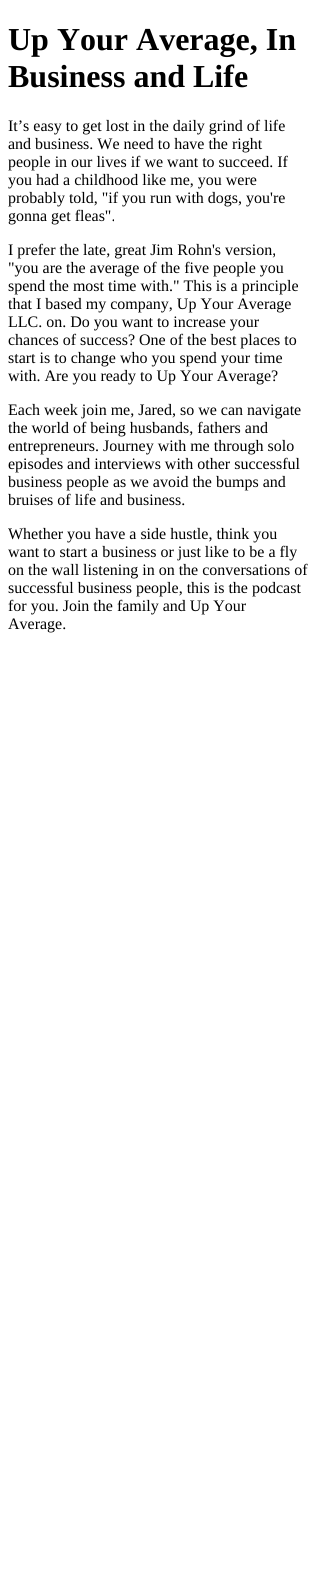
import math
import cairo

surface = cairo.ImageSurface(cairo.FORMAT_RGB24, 316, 1577)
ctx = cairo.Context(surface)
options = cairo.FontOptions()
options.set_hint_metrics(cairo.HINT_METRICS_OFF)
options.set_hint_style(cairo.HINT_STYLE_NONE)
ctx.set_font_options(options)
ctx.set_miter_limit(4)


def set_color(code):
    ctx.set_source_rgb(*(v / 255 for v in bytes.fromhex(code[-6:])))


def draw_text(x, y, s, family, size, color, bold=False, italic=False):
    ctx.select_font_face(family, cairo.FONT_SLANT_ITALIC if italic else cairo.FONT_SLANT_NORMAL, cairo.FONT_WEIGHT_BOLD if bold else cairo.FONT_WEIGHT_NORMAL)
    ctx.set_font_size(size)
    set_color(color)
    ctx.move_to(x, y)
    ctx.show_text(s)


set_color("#ffffff")
ctx.paint()
draw_text(8, 50, "Up Your Average, In", "Liberation Serif", 32, "#000000", bold=True)
draw_text(8, 87, "Business and Life", "Liberation Serif", 32, "#000000", bold=True)
draw_text(8, 131, "It’s easy to get lost in the daily grind of life", "Liberation Serif", 16, "#000000")
draw_text(8, 149, "and business. We need to have the right", "Liberation Serif", 16, "#000000")
draw_text(8, 167, "people in our lives if we want to succeed. If", "Liberation Serif", 16, "#000000")
draw_text(8, 185, "you had a childhood like me, you were", "Liberation Serif", 16, "#000000")
draw_text(8, 203, "probably told, \"if you run with dogs, you're", "Liberation Serif", 16, "#000000")
draw_text(8, 221, "gonna get fleas\".", "Liberation Serif", 16, "#000000")
draw_text(8, 255, "I prefer the late, great Jim Rohn's version,", "Liberation Serif", 16, "#000000")
draw_text(8, 273, "\"you are the average of the five people you", "Liberation Serif", 16, "#000000")
draw_text(8, 291, "spend the most time with.\" This is a principle", "Liberation Serif", 16, "#000000")
draw_text(8, 309, "that I based my company, Up Your Average", "Liberation Serif", 16, "#000000")
draw_text(8, 327, "LLC. on. Do you want to increase your", "Liberation Serif", 16, "#000000")
draw_text(8, 345, "chances of success? One of the best places to", "Liberation Serif", 16, "#000000")
draw_text(8, 363, "start is to change who you spend your time", "Liberation Serif", 16, "#000000")
draw_text(8, 381, "with. Are you ready to Up Your Average?", "Liberation Serif", 16, "#000000")
draw_text(8, 415, "Each week join me, Jared, so we can navigate", "Liberation Serif", 16, "#000000")
draw_text(8, 433, "the world of being husbands, fathers and", "Liberation Serif", 16, "#000000")
draw_text(8, 451, "entrepreneurs. Journey with me through solo", "Liberation Serif", 16, "#000000")
draw_text(8, 469, "episodes and interviews with other successful", "Liberation Serif", 16, "#000000")
draw_text(8, 487, "business people as we avoid the bumps and", "Liberation Serif", 16, "#000000")
draw_text(8, 505, "bruises of life and business.", "Liberation Serif", 16, "#000000")
draw_text(8, 539, "Whether you have a side hustle, think you", "Liberation Serif", 16, "#000000")
draw_text(8, 557, "want to start a business or just like to be a fly", "Liberation Serif", 16, "#000000")
draw_text(8, 575, "on the wall listening in on the conversations of", "Liberation Serif", 16, "#000000")
draw_text(8, 593, "successful business people, this is the podcast", "Liberation Serif", 16, "#000000")
draw_text(8, 611, "for you. Join the family and Up Your", "Liberation Serif", 16, "#000000")
draw_text(8, 629, "Average.", "Liberation Serif", 16, "#000000")
surface.write_to_png("output.png")
